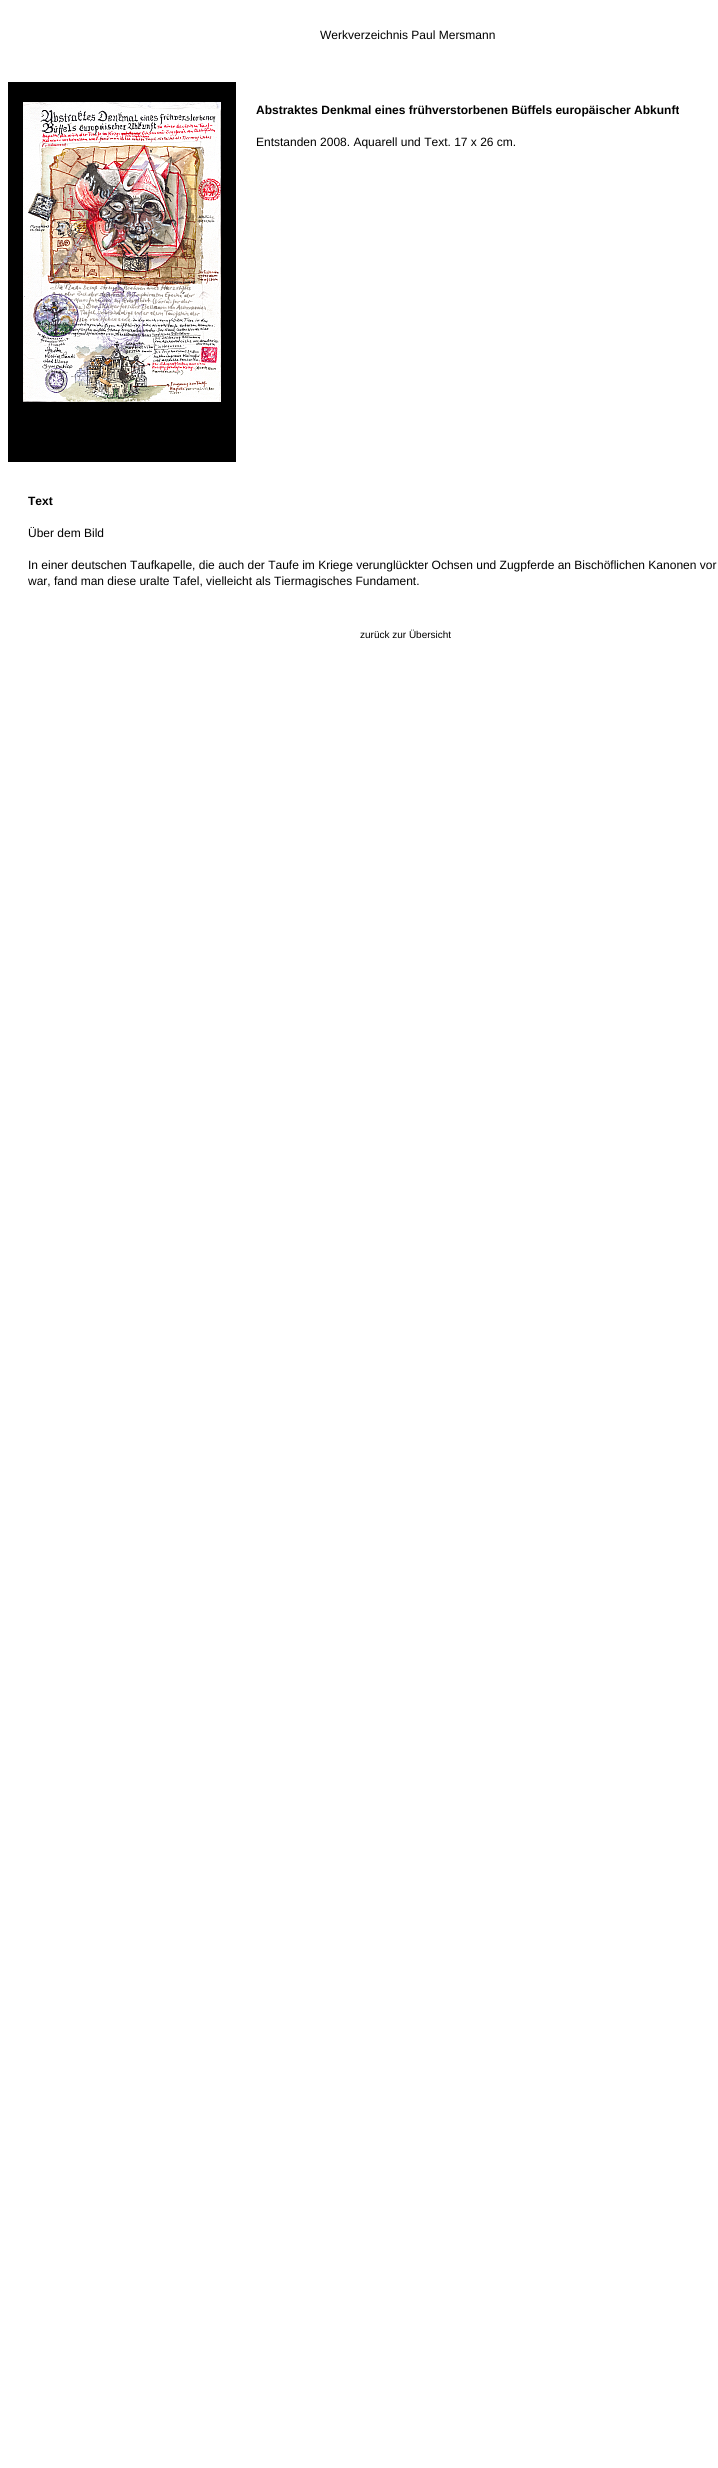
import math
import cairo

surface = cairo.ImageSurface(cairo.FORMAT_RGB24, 718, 2468)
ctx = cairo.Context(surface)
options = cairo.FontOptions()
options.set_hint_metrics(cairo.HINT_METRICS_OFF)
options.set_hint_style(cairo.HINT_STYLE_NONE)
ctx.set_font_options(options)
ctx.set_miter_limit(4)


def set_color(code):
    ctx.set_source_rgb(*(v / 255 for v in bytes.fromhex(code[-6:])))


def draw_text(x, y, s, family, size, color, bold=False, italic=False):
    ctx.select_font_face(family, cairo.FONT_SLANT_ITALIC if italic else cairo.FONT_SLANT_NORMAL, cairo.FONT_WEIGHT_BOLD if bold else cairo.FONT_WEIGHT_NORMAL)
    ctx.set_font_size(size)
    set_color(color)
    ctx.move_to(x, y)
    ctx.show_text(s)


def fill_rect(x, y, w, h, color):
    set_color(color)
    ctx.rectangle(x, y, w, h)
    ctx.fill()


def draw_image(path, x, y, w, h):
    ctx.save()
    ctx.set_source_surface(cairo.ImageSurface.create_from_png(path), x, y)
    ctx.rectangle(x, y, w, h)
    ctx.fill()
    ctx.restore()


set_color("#ffffff")
ctx.paint()
draw_text(320, 39, "Werkverzeichnis Paul Mersmann", "Liberation Sans", 12, "#000000")
fill_rect(8, 82, 228, 380, "#000000")
draw_image("assets/img1.png", 23, 102, 198, 300)
draw_text(256, 114, "Abstraktes Denkmal eines frühverstorbenen Büffels europäischer Abkunft", "Liberation Sans", 12, "#000000", bold=True)
draw_text(256, 146, "Entstanden 2008. Aquarell und Text. 17 x 26 cm.", "Liberation Sans", 12, "#000000")
draw_text(28, 505, "Text", "Liberation Sans", 12, "#000000", bold=True)
draw_text(28, 537, "Über dem Bild", "Liberation Sans", 12, "#000000")
draw_text(28, 569, "In einer deutschen Taufkapelle, die auch der Taufe im Kriege verunglückter Ochsen und Zugpferde an Bischöflichen Kanonen vor", "Liberation Sans", 12, "#000000")
draw_text(28, 585, "war, fand man diese uralte Tafel, vielleicht als Tiermagisches Fundament.", "Liberation Sans", 12, "#000000")
draw_text(360, 638, "zurück zur Übersicht", "Liberation Sans", 10, "#000000")
surface.write_to_png("output.png")
